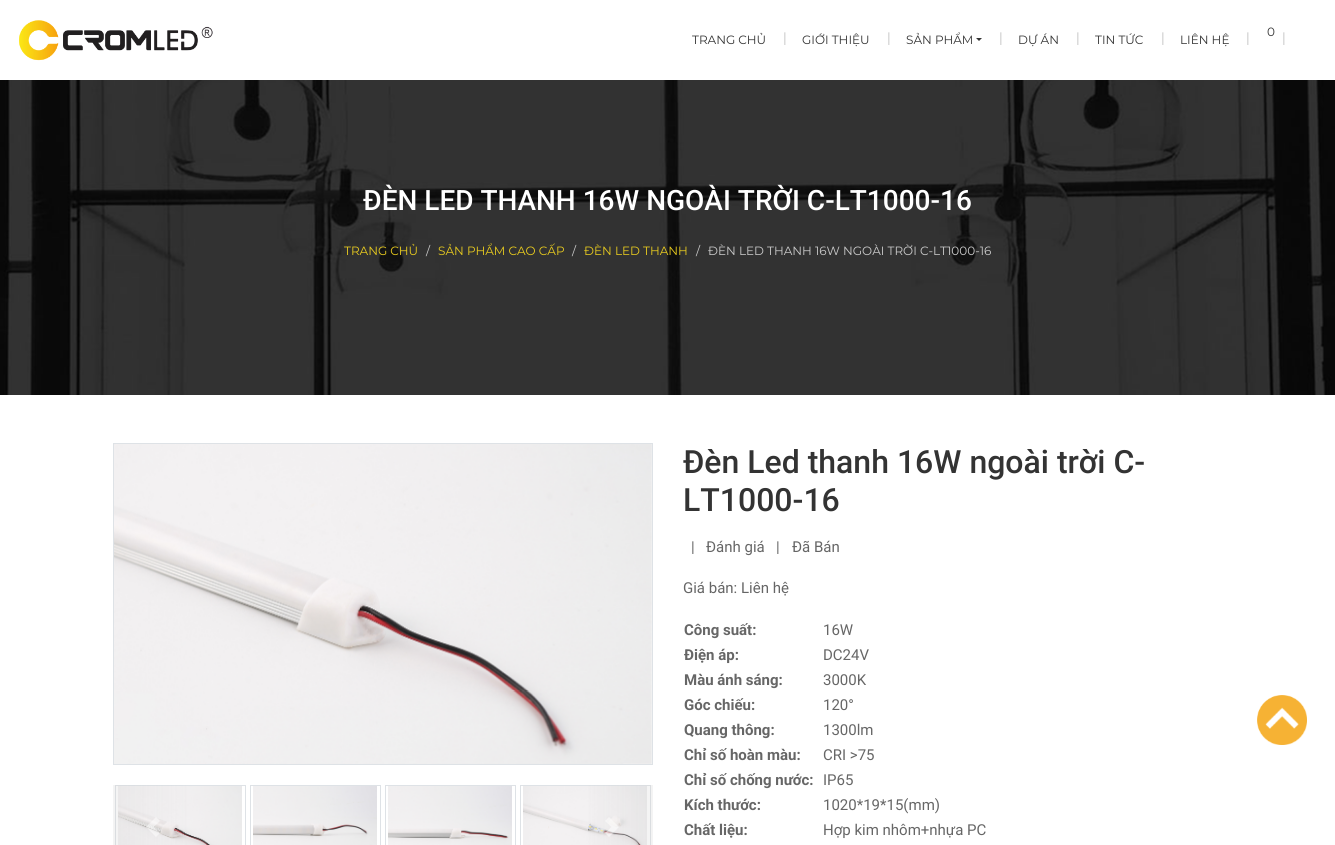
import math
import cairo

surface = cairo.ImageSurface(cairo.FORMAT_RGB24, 1335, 845)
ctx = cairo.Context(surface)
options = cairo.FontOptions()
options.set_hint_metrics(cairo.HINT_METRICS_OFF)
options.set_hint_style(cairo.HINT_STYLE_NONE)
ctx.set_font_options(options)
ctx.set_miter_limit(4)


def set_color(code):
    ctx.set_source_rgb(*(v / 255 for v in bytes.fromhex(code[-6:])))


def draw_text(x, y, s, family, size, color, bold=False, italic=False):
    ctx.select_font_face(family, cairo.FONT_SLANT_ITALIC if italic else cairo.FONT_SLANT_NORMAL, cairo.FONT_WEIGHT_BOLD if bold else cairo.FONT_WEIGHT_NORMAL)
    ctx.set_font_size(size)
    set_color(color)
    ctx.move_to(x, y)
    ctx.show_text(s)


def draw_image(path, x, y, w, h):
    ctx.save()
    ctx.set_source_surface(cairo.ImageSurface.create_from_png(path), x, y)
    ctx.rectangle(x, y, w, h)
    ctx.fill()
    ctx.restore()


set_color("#ffffff")
ctx.paint()
draw_image("assets/img1.png", 19, 20, 194, 41)
draw_text(692, 44, "TRANG CHỦ", "Montserrat", 12, "#333333")
draw_text(783, 43, "|", "Roboto", 15, "#cccccc")
draw_text(802, 44, "GIỚI THIỆU", "Montserrat", 12, "#333333")
draw_text(887, 43, "|", "Roboto", 15, "#cccccc")
draw_text(906, 44, "SẢN PHẨM", "Montserrat", 12, "#333333")
ctx.new_path()
ctx.move_to(976, 38)
ctx.line_to(982, 38)
ctx.line_to(979, 41)
ctx.close_path()
ctx.fill()
draw_text(999, 43, "|", "Roboto", 15, "#cccccc")
draw_text(1018, 44, "DỰ ÁN", "Montserrat", 12, "#333333")
draw_text(1076, 43, "|", "Roboto", 15, "#cccccc")
draw_text(1095, 44, "TIN TỨC", "Montserrat", 12, "#333333")
draw_text(1161, 43, "|", "Roboto", 15, "#cccccc")
draw_text(1180, 44, "LIÊN HỆ", "Montserrat", 12, "#333333")
draw_text(1246, 43, "|", "Roboto", 15, "#cccccc")
draw_text(1267, 36, "0", "Montserrat", 12, "#333333")
draw_text(1282, 43, "|", "Roboto", 15, "#cccccc")
draw_image("assets/img2.png", 0, 80, 1335, 315)
draw_text(363, 210, "ĐÈN LED THANH 16W NGOÀI TRỜI C-LT1000-16", "Roboto Medium", 28, "#ffffff")
draw_text(344, 255, "TRANG CHỦ", "Montserrat", 12, "#ebcd1e")
draw_text(426, 255, "/", "Montserrat", 12, "#cccccc")
draw_text(438, 255, "SẢN PHẨM CAO CẤP", "Montserrat", 12, "#ebcd1e")
draw_text(572, 255, "/", "Montserrat", 12, "#cccccc")
draw_text(584, 255, "ĐÈN LED THANH", "Montserrat", 12, "#ebcd1e")
draw_text(696, 255, "/", "Montserrat", 12, "#cccccc")
draw_text(708, 255, "ĐÈN LED THANH 16W NGOÀI TRỜI C-LT1000-16", "Montserrat", 12, "#cccccc")
ctx.rectangle(113.5, 443.5, 539, 321)
set_color("#dee2e6")
ctx.set_line_width(1)
ctx.stroke()
gradient = cairo.LinearGradient(242, 368, 524, 840)
gradient.add_color_stop_rgba(0, 0.945, 0.945, 0.945, 1)
gradient.add_color_stop_rgba(1, 1, 1, 1, 1)
ctx.set_source(gradient)
ctx.rectangle(114, 444, 538, 320)
ctx.fill()
draw_image("assets/img4.png", 142, 444, 481, 320)
draw_image("assets/img3.png", 114, 444, 538, 320)
ctx.rectangle(115.5, 785.5, 130, 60)
set_color("#dee2e6")
ctx.stroke()
draw_image("assets/img5.png", 118, 786, 124, 59)
gradient = cairo.LinearGradient(113, 828, 194, 828)
gradient.add_color_stop_rgba(0, 0.816, 0.816, 0.816, 0.25)
gradient.add_color_stop_rgba(1, 0.816, 0.816, 0.816, 0)
ctx.set_source(gradient)
ctx.rectangle(113, 785, 74, 60)
ctx.fill()
ctx.set_source_rgba(1, 1, 1, 0.5)
ctx.new_path()
ctx.move_to(156, 817)
ctx.line_to(146, 827)
ctx.line_to(156, 837)
ctx.line_to(160, 833)
ctx.line_to(153.5, 827)
ctx.line_to(160, 821)
ctx.close_path()
ctx.fill()
ctx.rectangle(250.5, 785.5, 130, 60)
set_color("#dee2e6")
ctx.stroke()
draw_image("assets/img6.png", 253, 786, 124, 59)
ctx.rectangle(385.5, 785.5, 130, 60)
ctx.stroke()
draw_image("assets/img7.png", 388, 786, 124, 59)
ctx.rectangle(520.5, 785.5, 130, 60)
ctx.stroke()
draw_image("assets/img8.png", 523, 786, 124, 59)
gradient = cairo.LinearGradient(572, 828, 653, 828)
gradient.add_color_stop_rgba(0, 0.816, 0.816, 0.816, 0)
gradient.add_color_stop_rgba(1, 0.816, 0.816, 0.816, 0.25)
ctx.set_source(gradient)
ctx.rectangle(588, 785, 65, 60)
ctx.fill()
ctx.set_source_rgba(1, 1, 1, 0.5)
ctx.new_path()
ctx.move_to(609, 817)
ctx.line_to(605, 821)
ctx.line_to(611.5, 827)
ctx.line_to(605, 833)
ctx.line_to(609, 837)
ctx.line_to(619, 827)
ctx.close_path()
ctx.fill()
draw_text(683, 473, "Đèn Led thanh 16W ngoài trời C-", "Roboto Medium", 32, "#333333")
draw_text(683, 511, "LT1000-16", "Roboto Medium", 32, "#333333")
draw_text(691, 552, "|", "Roboto", 15, "#666666")
draw_text(706, 552, "Đánh giá", "Roboto", 15, "#666666")
draw_text(776, 552, "|", "Roboto", 15, "#666666")
draw_text(792, 552, "Đã Bán", "Roboto", 15, "#666666")
draw_text(683, 593, "Giá bán: Liên hệ", "Roboto", 15, "#666666")
draw_text(684, 635, "Công suất:", "Roboto", 15, "#666666", bold=True)
draw_text(684, 660, "Điện áp:", "Roboto", 15, "#666666", bold=True)
draw_text(684, 685, "Màu ánh sáng:", "Roboto", 15, "#666666", bold=True)
draw_text(684, 710, "Góc chiếu:", "Roboto", 15, "#666666", bold=True)
draw_text(684, 735, "Quang thông:", "Roboto", 15, "#666666", bold=True)
draw_text(684, 760, "Chỉ số hoàn màu:", "Roboto", 15, "#666666", bold=True)
draw_text(684, 785, "Chỉ số chống nước:", "Roboto", 15, "#666666", bold=True)
draw_text(684, 810, "Kích thước:", "Roboto", 15, "#666666", bold=True)
draw_text(684, 835, "Chất liệu:", "Roboto", 15, "#666666", bold=True)
draw_text(823, 635, "16W", "Roboto", 15, "#666666")
draw_text(823, 660, "DC24V", "Roboto", 15, "#666666")
draw_text(823, 685, "3000K", "Roboto", 15, "#666666")
draw_text(823, 710, "120°", "Roboto", 15, "#666666")
draw_text(823, 735, "1300lm", "Roboto", 15, "#666666")
draw_text(823, 760, "CRI >75", "Roboto", 15, "#666666")
draw_text(823, 785, "IP65", "Roboto", 15, "#666666")
draw_text(823, 810, "1020*19*15(mm)", "Roboto", 15, "#666666")
draw_text(823, 835, "Hợp kim nhôm+nhựa PC", "Roboto", 15, "#666666")
draw_image("assets/img9.png", 1257, 695, 50, 50)
surface.write_to_png("output.png")
